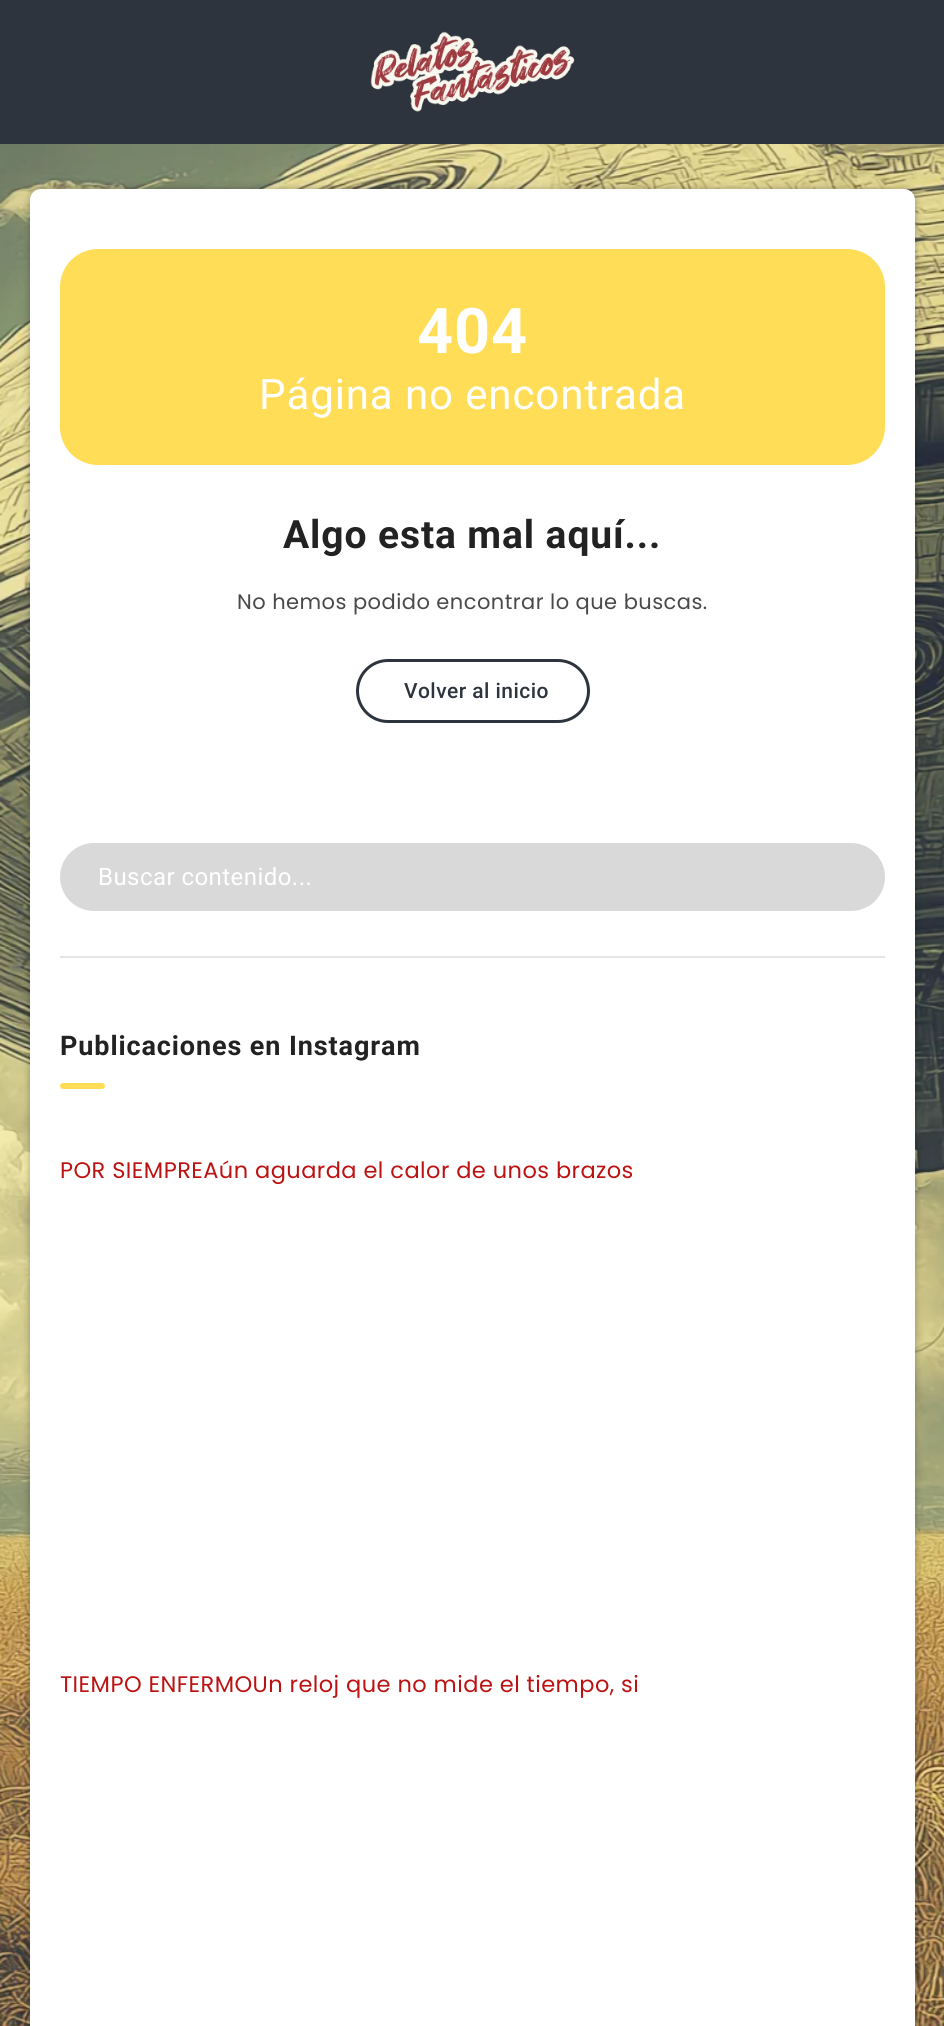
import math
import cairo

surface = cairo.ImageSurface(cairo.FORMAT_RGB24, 944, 2026)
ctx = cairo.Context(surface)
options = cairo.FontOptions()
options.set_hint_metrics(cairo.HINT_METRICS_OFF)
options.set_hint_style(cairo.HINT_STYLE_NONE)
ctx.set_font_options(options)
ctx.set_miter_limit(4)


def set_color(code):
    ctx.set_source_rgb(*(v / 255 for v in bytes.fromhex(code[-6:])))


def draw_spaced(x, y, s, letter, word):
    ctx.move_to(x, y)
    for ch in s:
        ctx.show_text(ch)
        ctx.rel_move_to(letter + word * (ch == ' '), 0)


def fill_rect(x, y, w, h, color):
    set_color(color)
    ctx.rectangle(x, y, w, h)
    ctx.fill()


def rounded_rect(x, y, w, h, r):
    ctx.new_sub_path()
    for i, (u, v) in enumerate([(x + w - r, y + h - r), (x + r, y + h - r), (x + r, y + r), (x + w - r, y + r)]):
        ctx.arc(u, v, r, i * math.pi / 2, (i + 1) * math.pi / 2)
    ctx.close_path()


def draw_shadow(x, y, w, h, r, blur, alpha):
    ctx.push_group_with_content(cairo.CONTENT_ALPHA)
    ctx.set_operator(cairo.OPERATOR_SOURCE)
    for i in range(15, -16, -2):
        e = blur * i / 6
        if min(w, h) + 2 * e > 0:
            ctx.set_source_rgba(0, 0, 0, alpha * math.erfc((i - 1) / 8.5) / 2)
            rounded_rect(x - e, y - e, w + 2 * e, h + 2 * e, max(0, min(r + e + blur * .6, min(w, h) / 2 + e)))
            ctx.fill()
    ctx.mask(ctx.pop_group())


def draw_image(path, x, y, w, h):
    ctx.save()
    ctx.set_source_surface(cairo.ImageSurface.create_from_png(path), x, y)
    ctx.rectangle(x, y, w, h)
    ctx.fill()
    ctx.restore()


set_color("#ffffff")
ctx.paint()
draw_image("assets/img1.png", 0, 144, 944, 1882)
fill_rect(0, 0, 944, 144, "#2e343d")
draw_image("assets/img2.png", 370, 31, 205, 81)
set_color("#000000")
draw_shadow(30, 189, 885, 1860, 11, 4, 0.3)
set_color("#ffffff")
rounded_rect(30, 189, 885, 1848, 11)
ctx.fill()
set_color("#ffdd56")
rounded_rect(60, 249, 825, 216, 38)
ctx.fill()
ctx.select_font_face("Roboto", cairo.FONT_SLANT_NORMAL, cairo.FONT_WEIGHT_BOLD)
ctx.set_font_size(63)
set_color("#ffffff")
draw_spaced(417, 353, "404", 0.9, 0)
ctx.select_font_face("Roboto")
ctx.set_font_size(42)
draw_spaced(259, 409, "Página no encontrada", 0.9, 0)
ctx.select_font_face("Roboto", cairo.FONT_SLANT_NORMAL, cairo.FONT_WEIGHT_BOLD)
ctx.set_font_size(39)
set_color("#222222")
draw_spaced(283, 548, "Algo esta mal aquí...", 0.9, 0)
ctx.select_font_face("Poppins")
ctx.set_font_size(21)
set_color("#494949")
draw_spaced(237, 609, "No hemos podido encontrar lo que buscas.", 0.45, 0)
rounded_rect(357.5, 660.5, 231, 61, 30.5)
set_color("#2e343d")
ctx.set_line_width(3)
ctx.stroke()
ctx.select_font_face("Roboto Medium")
draw_spaced(404, 698, "Volver al inicio", 0.45, 0)
fill_rect(60, 956, 825, 2, "#e5e5e5")
set_color("#d9d9d9")
rounded_rect(60, 843, 825, 68, 34)
ctx.fill()
ctx.select_font_face("Roboto")
ctx.set_font_size(24)
set_color("#ffffff")
draw_spaced(98, 885, "Buscar contenido...", 0.45, 0)
ctx.select_font_face("Roboto", cairo.FONT_SLANT_NORMAL, cairo.FONT_WEIGHT_BOLD)
ctx.set_font_size(27)
set_color("#222222")
draw_spaced(60, 1055, "Publicaciones en Instagram", 0.9, 0)
set_color("#ffdd56")
rounded_rect(60, 1083, 45, 6, 3)
ctx.fill()
ctx.select_font_face("Poppins")
ctx.set_font_size(22.5)
set_color("#bc1212")
draw_spaced(60, 1178, "POR SIEMPREAún aguarda el calor de unos brazos", 0.45, 0)
draw_spaced(60, 1692, "TIEMPO ENFERMOUn reloj que no mide el tiempo, si", 0.45, 0)
surface.write_to_png("output.png")
